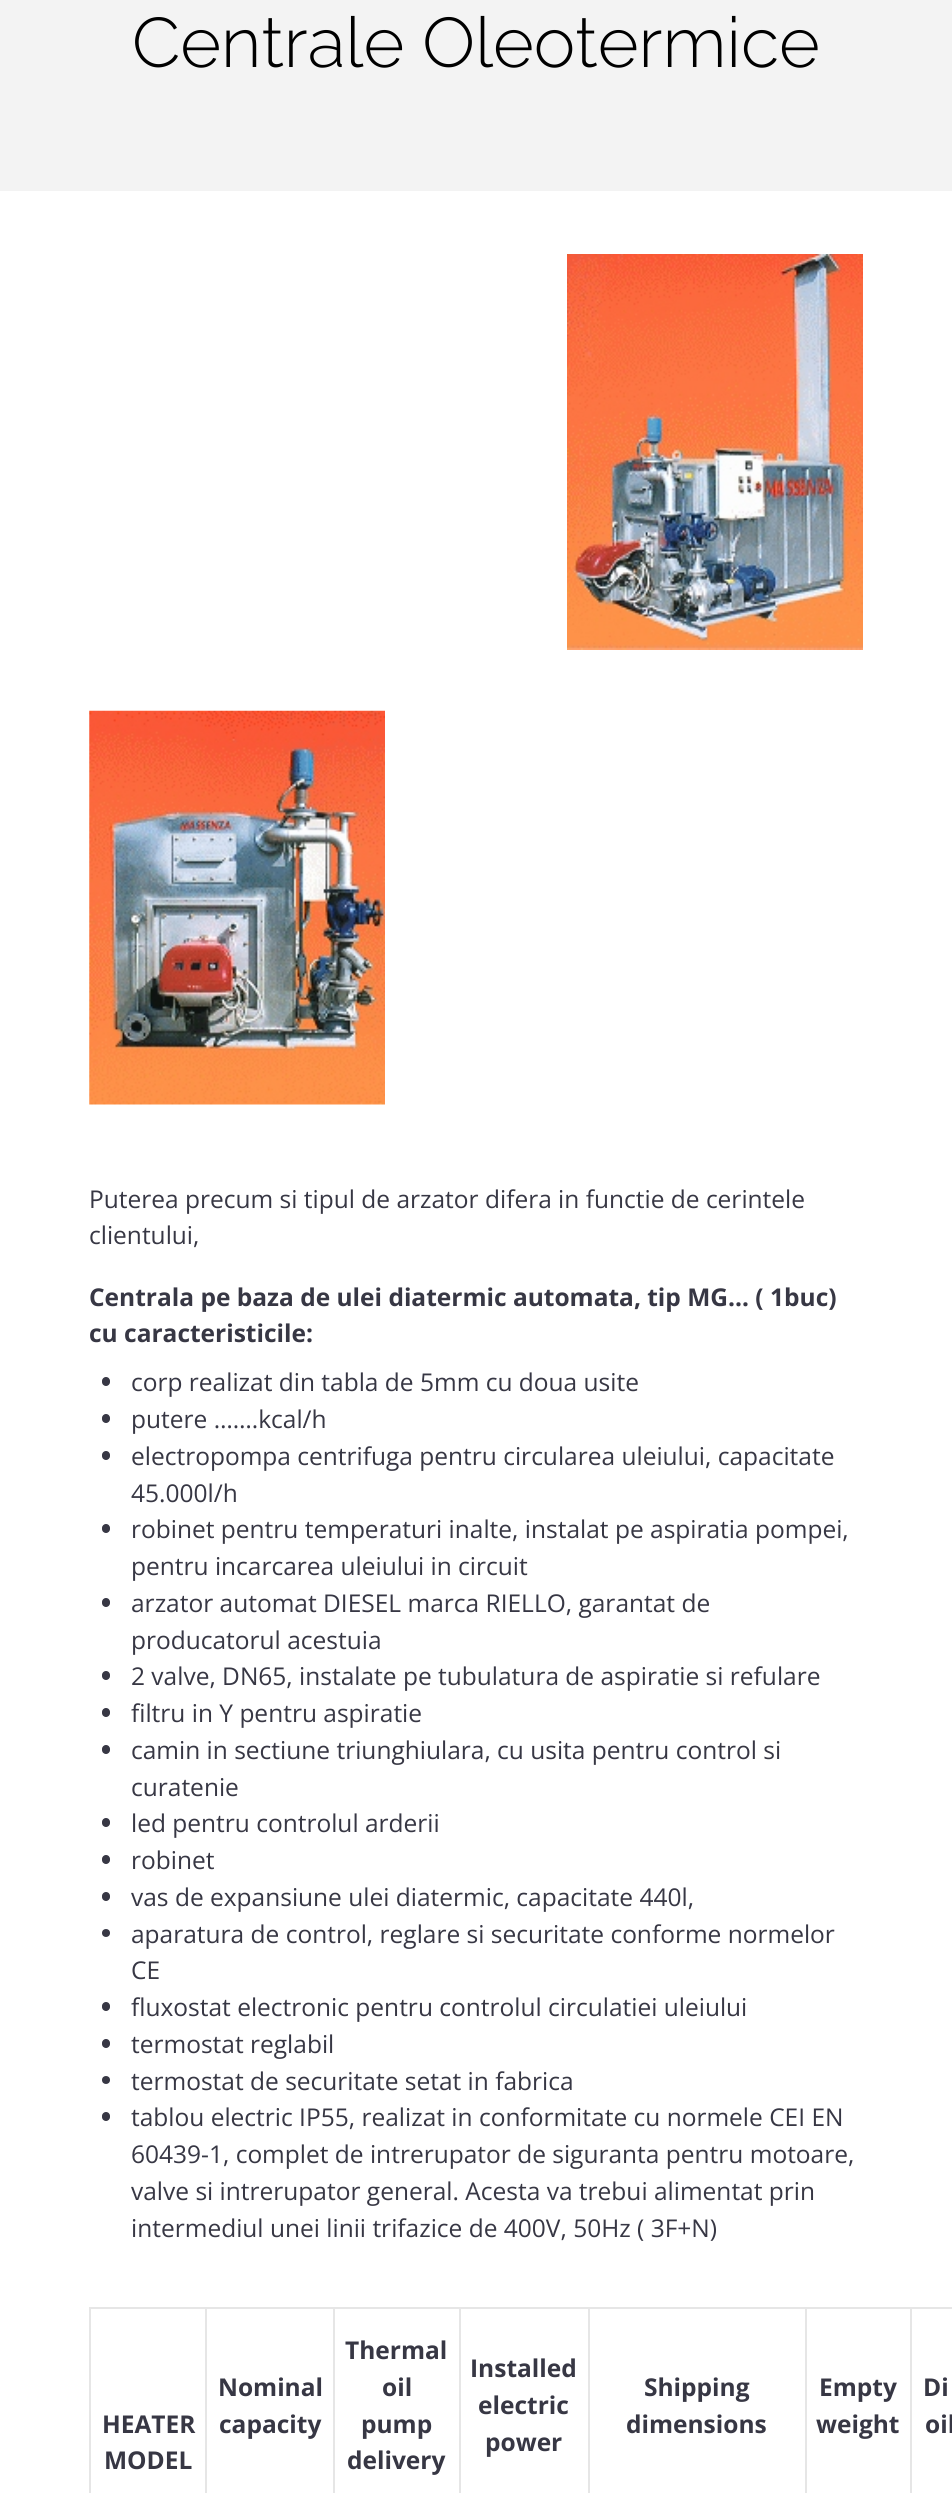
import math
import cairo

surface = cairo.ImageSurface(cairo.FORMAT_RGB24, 952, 2493)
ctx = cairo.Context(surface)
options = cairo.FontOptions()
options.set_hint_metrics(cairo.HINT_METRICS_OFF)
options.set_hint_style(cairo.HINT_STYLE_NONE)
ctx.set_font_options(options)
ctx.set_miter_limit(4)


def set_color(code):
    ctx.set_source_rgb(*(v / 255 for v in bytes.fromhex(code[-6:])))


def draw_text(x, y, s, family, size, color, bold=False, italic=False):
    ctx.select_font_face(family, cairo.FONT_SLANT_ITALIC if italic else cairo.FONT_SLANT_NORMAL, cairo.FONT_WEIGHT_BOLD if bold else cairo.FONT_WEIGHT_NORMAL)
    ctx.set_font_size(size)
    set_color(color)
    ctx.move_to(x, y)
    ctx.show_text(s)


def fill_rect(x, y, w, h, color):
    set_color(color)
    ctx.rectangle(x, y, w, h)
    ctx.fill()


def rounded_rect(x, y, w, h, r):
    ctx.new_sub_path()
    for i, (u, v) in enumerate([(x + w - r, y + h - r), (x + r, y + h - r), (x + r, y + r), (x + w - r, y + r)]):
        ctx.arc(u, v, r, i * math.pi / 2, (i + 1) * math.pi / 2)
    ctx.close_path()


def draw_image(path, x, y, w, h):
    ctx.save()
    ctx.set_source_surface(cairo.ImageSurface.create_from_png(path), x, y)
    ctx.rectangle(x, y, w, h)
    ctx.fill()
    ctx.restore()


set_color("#ffffff")
ctx.paint()
fill_rect(0, 0, 952, 191, "#f3f3f3")
draw_text(132, 67, "Centrale Oleotermice", "Raleway Light", 70, "#000000")
draw_image("assets/img1.png", 567, 254, 296, 396)
draw_image("assets/img2.png", 89, 710, 296, 395)
draw_text(89, 1208, "Puterea precum si tipul de arzator difera in functie de cerintele", "Open Sans", 24.5, "#373744")
draw_text(89, 1244, "clientului,", "Open Sans", 24.5, "#373744")
draw_text(89, 1306, "Centrala pe baza de ulei diatermic automata, tip MG… ( 1buc)", "Open Sans", 24.5, "#373744", bold=True)
draw_text(89, 1342, "cu caracteristicile:", "Open Sans", 24.5, "#373744", bold=True)
rounded_rect(102, 1377, 8, 9, 4)
ctx.fill()
draw_text(131, 1391, "corp realizat din tabla de 5mm cu doua usite", "Open Sans", 24.5, "#373744")
rounded_rect(102, 1414, 8, 9, 4)
ctx.fill()
draw_text(131, 1428, "putere …….kcal/h", "Open Sans", 24.5, "#373744")
rounded_rect(102, 1451, 8, 9, 4)
ctx.fill()
draw_text(131, 1465, "electropompa centrifuga pentru circularea uleiului, capacitate", "Open Sans", 24.5, "#373744")
draw_text(131, 1502, "45.000l/h", "Open Sans", 24.5, "#373744")
rounded_rect(102, 1524, 8, 9, 4)
ctx.fill()
draw_text(131, 1538, "robinet pentru temperaturi inalte, instalat pe aspiratia pompei,", "Open Sans", 24.5, "#373744")
draw_text(131, 1575, "pentru incarcarea uleiului in circuit", "Open Sans", 24.5, "#373744")
rounded_rect(102, 1598, 8, 9, 4)
ctx.fill()
draw_text(131, 1612, "arzator automat DIESEL marca RIELLO, garantat de", "Open Sans", 24.5, "#373744")
draw_text(131, 1649, "producatorul acestuia", "Open Sans", 24.5, "#373744")
rounded_rect(102, 1671, 8, 9, 4)
ctx.fill()
draw_text(131, 1685, "2 valve, DN65, instalate pe tubulatura de aspiratie si refulare", "Open Sans", 24.5, "#373744")
rounded_rect(102, 1708, 8, 9, 4)
ctx.fill()
draw_text(131, 1722, "filtru in Y pentru aspiratie", "Open Sans", 24.5, "#373744")
rounded_rect(102, 1745, 8, 9, 4)
ctx.fill()
draw_text(131, 1759, "camin in sectiune triunghiulara, cu usita pentru control si", "Open Sans", 24.5, "#373744")
draw_text(131, 1796, "curatenie", "Open Sans", 24.5, "#373744")
rounded_rect(102, 1818, 8, 9, 4)
ctx.fill()
draw_text(131, 1832, "led pentru controlul arderii", "Open Sans", 24.5, "#373744")
rounded_rect(102, 1855, 8, 9, 4)
ctx.fill()
draw_text(131, 1869, "robinet", "Open Sans", 24.5, "#373744")
rounded_rect(102, 1892, 8, 9, 4)
ctx.fill()
draw_text(131, 1906, "vas de expansiune ulei diatermic, capacitate 440l,", "Open Sans", 24.5, "#373744")
ctx.new_path()
ctx.arc(106, 1933, 4, 0, 2 * math.pi)
ctx.fill()
draw_text(131, 1943, "aparatura de control, reglare si securitate conforme normelor", "Open Sans", 24.5, "#373744")
draw_text(131, 1979, "CE", "Open Sans", 24.5, "#373744")
rounded_rect(102, 2002, 8, 9, 4)
ctx.fill()
draw_text(131, 2016, "fluxostat electronic pentru controlul circulatiei uleiului", "Open Sans", 24.5, "#373744")
rounded_rect(102, 2039, 8, 9, 4)
ctx.fill()
draw_text(131, 2053, "termostat reglabil", "Open Sans", 24.5, "#373744")
ctx.new_path()
ctx.arc(106, 2080, 4, 0, 2 * math.pi)
ctx.fill()
draw_text(131, 2090, "termostat de securitate setat in fabrica", "Open Sans", 24.5, "#373744")
rounded_rect(102, 2112, 8, 9, 4)
ctx.fill()
draw_text(131, 2126, "tablou electric IP55, realizat in conformitate cu normele CEI EN", "Open Sans", 24.5, "#373744")
draw_text(131, 2163, "60439-1, complet de intrerupator de siguranta pentru motoare,", "Open Sans", 24.5, "#373744")
draw_text(131, 2200, "valve si intrerupator general. Acesta va trebui alimentat prin", "Open Sans", 24.5, "#373744")
draw_text(131, 2237, "intermediul unei linii trifazice de 400V, 50Hz ( 3F+N)", "Open Sans", 24.5, "#373744")
fill_rect(910, 2307, 42, 2, "#e6e6e6")
fill_rect(910, 2307, 2, 186, "#e6e6e6")
fill_rect(805, 2307, 107, 2, "#e6e6e6")
fill_rect(805, 2307, 2, 186, "#e6e6e6")
fill_rect(588, 2307, 219, 2, "#e6e6e6")
fill_rect(588, 2307, 2, 186, "#e6e6e6")
fill_rect(459, 2307, 131, 2, "#e6e6e6")
fill_rect(459, 2307, 2, 186, "#e6e6e6")
fill_rect(333, 2307, 127, 2, "#e6e6e6")
fill_rect(333, 2307, 2, 186, "#e6e6e6")
fill_rect(205, 2307, 129, 2, "#e6e6e6")
fill_rect(205, 2307, 2, 186, "#e6e6e6")
fill_rect(89, 2307, 118, 2, "#e6e6e6")
fill_rect(89, 2307, 2, 186, "#e6e6e6")
draw_text(102, 2433, "HEATER", "Open Sans", 24.5, "#373744", bold=True)
draw_text(104, 2469, "MODEL", "Open Sans", 24.5, "#373744", bold=True)
draw_text(218, 2396, "Nominal", "Open Sans", 24.5, "#373744", bold=True)
draw_text(219, 2433, "capacity", "Open Sans", 24.5, "#373744", bold=True)
draw_text(345, 2359, "Thermal", "Open Sans", 24.5, "#373744", bold=True)
draw_text(382, 2396, "oil", "Open Sans", 24.5, "#373744", bold=True)
draw_text(361, 2433, "pump", "Open Sans", 24.5, "#373744", bold=True)
draw_text(347, 2469, "delivery", "Open Sans", 24.5, "#373744", bold=True)
draw_text(470, 2377, "Installed", "Open Sans", 24.5, "#373744", bold=True)
draw_text(478, 2414, "electric", "Open Sans", 24.5, "#373744", bold=True)
draw_text(485, 2451, "power", "Open Sans", 24.5, "#373744", bold=True)
draw_text(644, 2396, "Shipping", "Open Sans", 24.5, "#373744", bold=True)
draw_text(626, 2433, "dimensions", "Open Sans", 24.5, "#373744", bold=True)
draw_text(819, 2396, "Empty", "Open Sans", 24.5, "#373744", bold=True)
draw_text(816, 2433, "weight", "Open Sans", 24.5, "#373744", bold=True)
draw_text(923, 2396, "Di", "Open Sans", 24.5, "#373744", bold=True)
draw_text(925, 2433, "oil", "Open Sans", 24.5, "#373744", bold=True)
surface.write_to_png("output.png")
